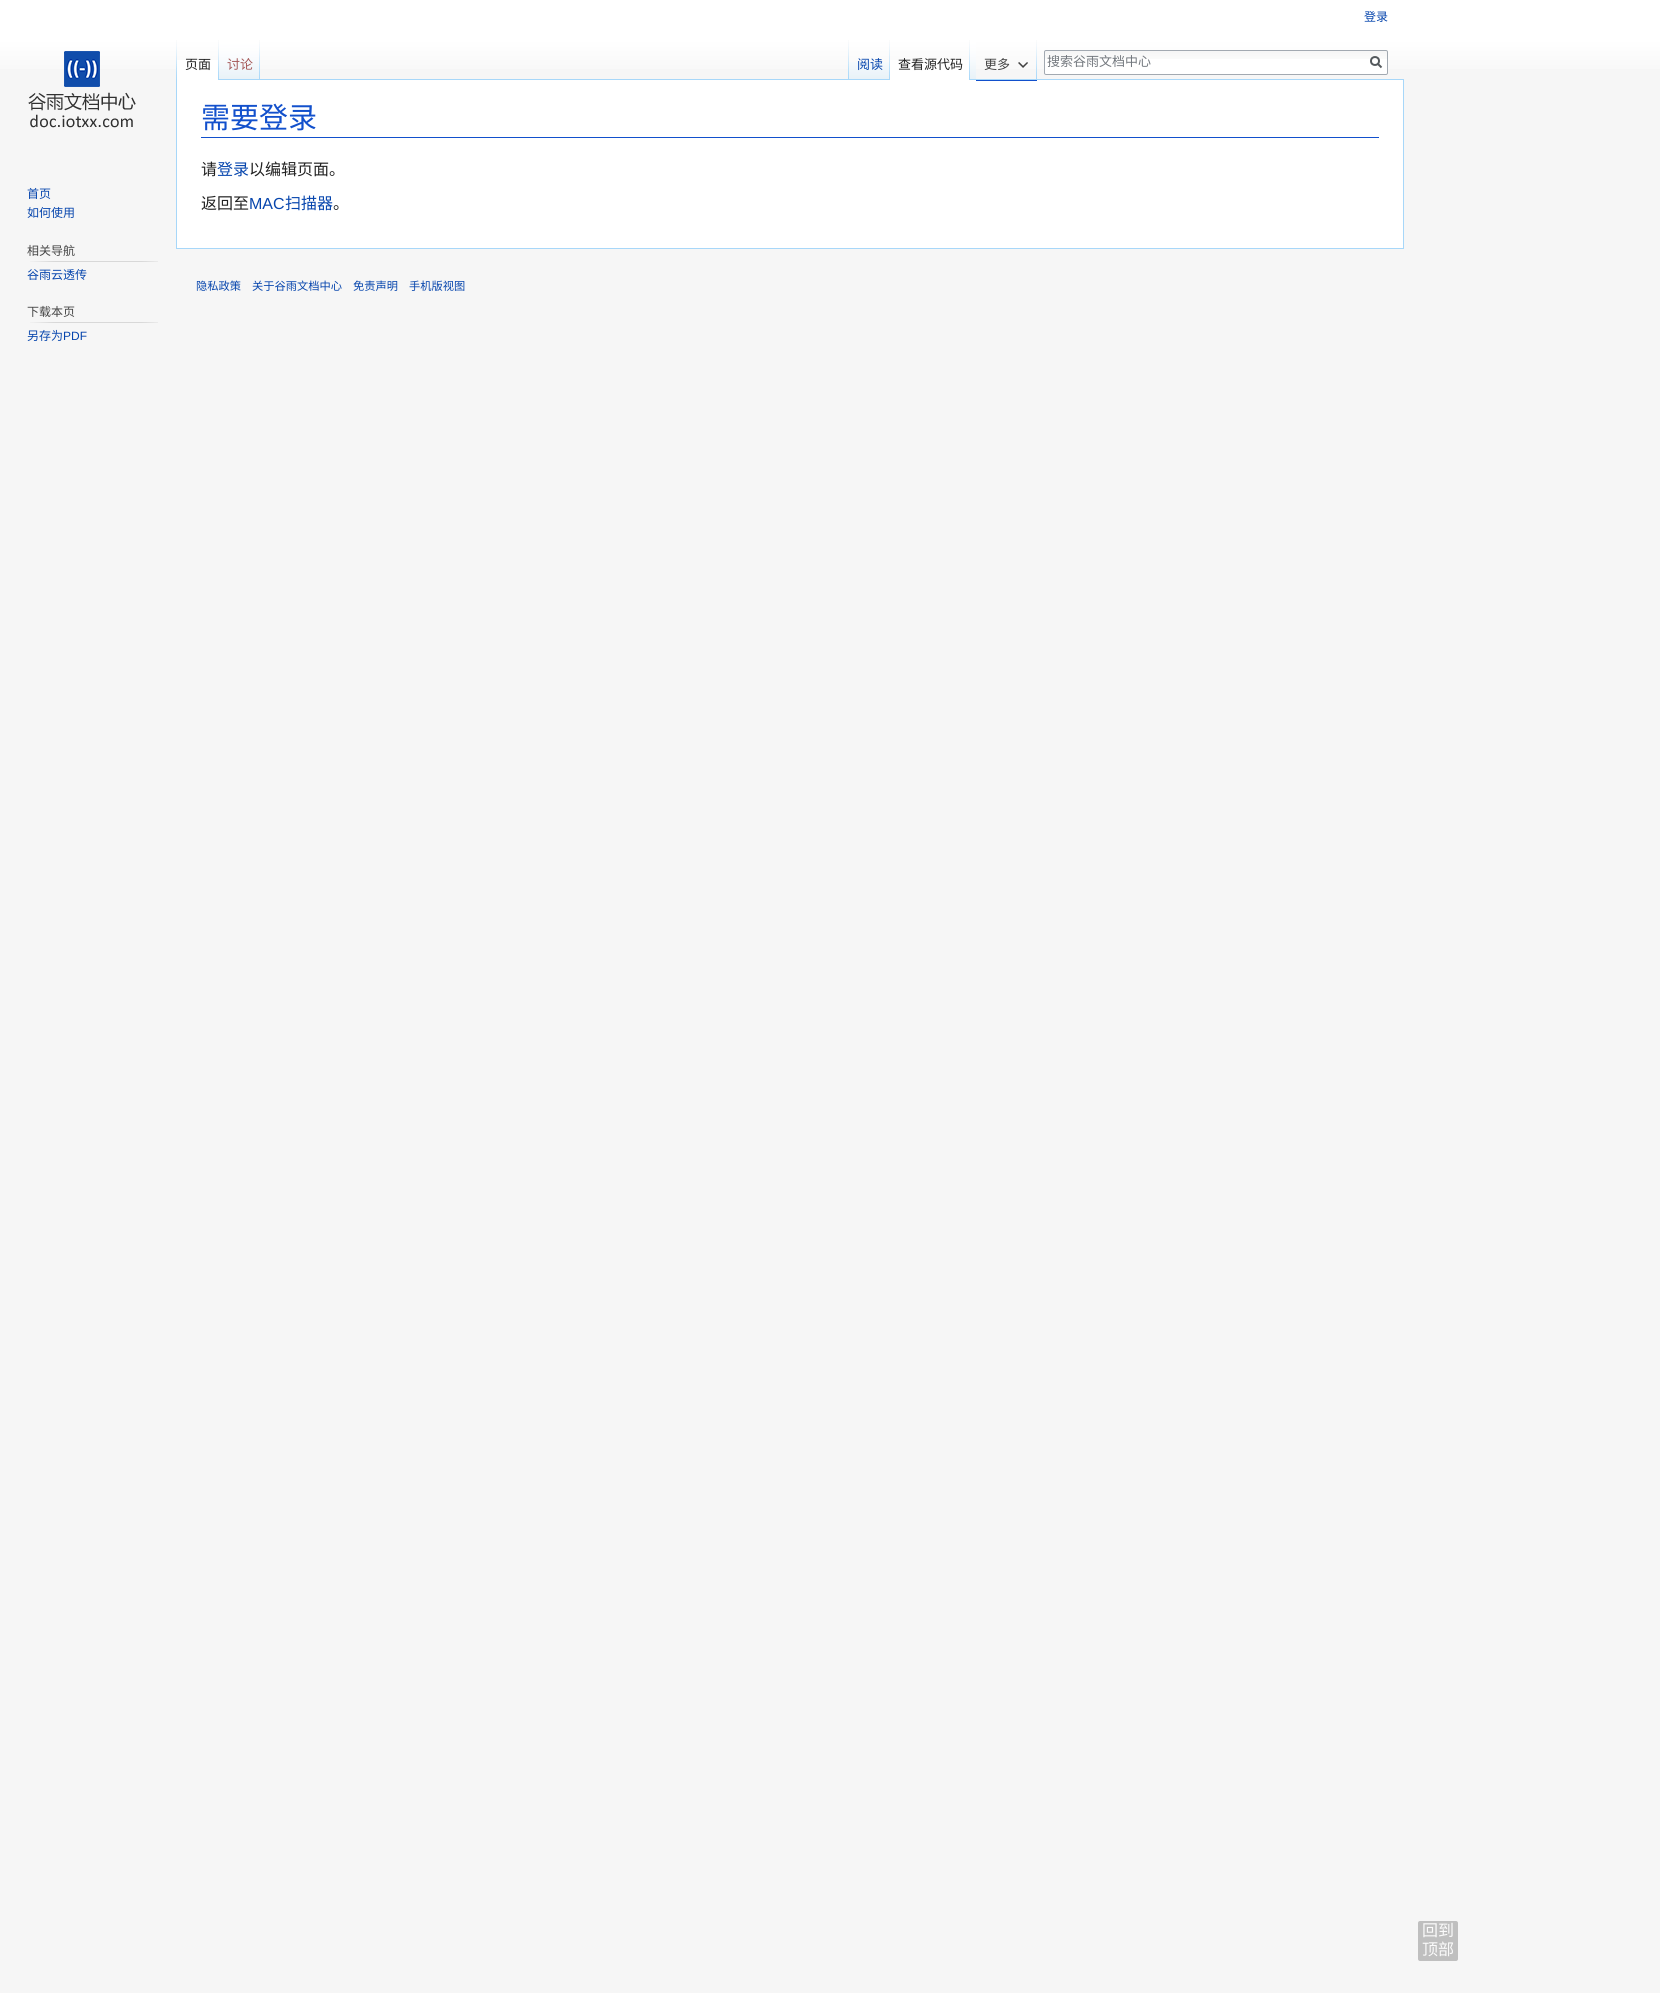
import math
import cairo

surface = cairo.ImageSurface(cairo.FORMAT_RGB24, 1660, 1993)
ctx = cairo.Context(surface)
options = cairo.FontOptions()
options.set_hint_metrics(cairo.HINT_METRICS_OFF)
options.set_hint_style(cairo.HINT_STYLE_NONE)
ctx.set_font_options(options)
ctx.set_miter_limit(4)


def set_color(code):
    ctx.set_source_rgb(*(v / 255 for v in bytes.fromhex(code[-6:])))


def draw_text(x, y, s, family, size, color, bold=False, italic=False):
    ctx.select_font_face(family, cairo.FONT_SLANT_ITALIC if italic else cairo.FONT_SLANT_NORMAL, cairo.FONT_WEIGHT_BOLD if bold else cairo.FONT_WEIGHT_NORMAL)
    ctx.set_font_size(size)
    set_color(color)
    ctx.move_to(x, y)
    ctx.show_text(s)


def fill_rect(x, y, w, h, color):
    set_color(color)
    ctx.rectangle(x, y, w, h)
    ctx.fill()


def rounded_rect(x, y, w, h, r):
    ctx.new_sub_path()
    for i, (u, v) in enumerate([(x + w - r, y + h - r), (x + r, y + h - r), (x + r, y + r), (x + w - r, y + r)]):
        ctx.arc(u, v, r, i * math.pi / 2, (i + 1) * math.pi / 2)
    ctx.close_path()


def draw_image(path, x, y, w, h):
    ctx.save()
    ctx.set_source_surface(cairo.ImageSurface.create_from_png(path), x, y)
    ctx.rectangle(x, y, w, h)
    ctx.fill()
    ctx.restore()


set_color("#f6f6f6")
ctx.paint()
gradient = cairo.LinearGradient(830, 0, 830, 80)
gradient.add_color_stop_rgba(0.5, 1, 1, 1, 1)
gradient.add_color_stop_rgba(1, 0.965, 0.965, 0.965, 1)
ctx.set_source(gradient)
ctx.rectangle(0, 0, 1660, 69)
ctx.fill()
draw_text(1364, 21, "登录", "Noto Sans CJK SC", 12, "#0645ad")
draw_image("assets/img1.png", 176, 40, 1, 39)
set_color("#ffffff")
ctx.rectangle(176.5, 79.5, 1227, 169)
ctx.fill_preserve()
set_color("#a7d7f9")
ctx.set_line_width(1)
ctx.stroke()
fill_rect(177, 60, 41, 20, "#ffffff")
draw_image("assets/img2.png", 218, 40, 1, 40)
draw_text(185, 69, "页面", "Noto Sans CJK SC", 13, "#222222")
draw_image("assets/img3.png", 219, 40, 40, 39)
draw_image("assets/img1.png", 259, 40, 1, 39)
draw_text(227, 69, "讨论", "Noto Sans CJK SC", 13, "#a55858")
draw_image("assets/img1.png", 848, 40, 1, 39)
draw_image("assets/img4.png", 849, 62, 40, 17)
draw_image("assets/img1.png", 889, 40, 1, 39)
draw_text(857, 69, "阅读", "Noto Sans CJK SC", 13, "#0645ad")
fill_rect(890, 60, 79, 20, "#ffffff")
draw_image("assets/img2.png", 969, 40, 1, 40)
draw_text(898, 69, "查看源代码", "Noto Sans CJK SC", 13, "#222222")
draw_image("assets/img5.png", 970, 40, 6, 39)
draw_image("assets/img1.png", 1036, 40, 1, 39)
fill_rect(976, 80, 61, 1, "#1250cc")
draw_text(984, 69, "更多", "Noto Sans CJK SC", 13, "#444444")
draw_image("assets/img6.png", 1018, 62, 10, 6)
set_color("#ffffff")
rounded_rect(1044, 50, 344, 25, 2)
ctx.fill()
draw_image("assets/img7.png", 1044, 51, 344, 8)
rounded_rect(1044.5, 50.5, 343, 24, 1.5)
set_color("#a2a9b1")
ctx.stroke()
draw_text(1047, 66, "搜索谷雨文档中心", "Noto Sans CJK SC", 13, "#72777d")
ctx.new_path()
ctx.move_to(1381.5, 67.5)
ctx.line_to(1377.5, 63.5)
set_color("#54595d")
ctx.set_line_width(2)
ctx.stroke()
ctx.arc(1375, 61, 4, 0, 2 * math.pi)
ctx.stroke()
draw_image("assets/img8.png", 28, 51, 108, 77)
draw_text(27, 198, "首页", "Noto Sans CJK SC", 12, "#0645ad")
draw_text(27, 217, "如何使用", "Noto Sans CJK SC", 12, "#0645ad")
draw_text(27, 255, "相关导航", "Noto Sans CJK SC", 12, "#444444")
draw_image("assets/img9.png", 30, 261, 128, 1)
draw_text(27, 279, "谷雨云透传", "Noto Sans CJK SC", 12, "#0645ad")
draw_text(27, 316, "下载本页", "Noto Sans CJK SC", 12, "#444444")
draw_image("assets/img9.png", 30, 322, 128, 1)
draw_text(27, 340, "另存为", "Noto Sans CJK SC", 12, "#0645ad")
draw_text(63, 340, "PDF", "Liberation Sans", 12, "#0645ad")
fill_rect(201, 137, 1178, 1, "#1250cc")
draw_text(201, 128, "需要登录", "Noto Sans CJK SC", 29, "#1250cc")
draw_text(201, 175, "请", "Noto Sans CJK SC", 16, "#222222")
draw_text(217, 175, "登录", "Noto Sans CJK SC", 16, "#0645ad")
draw_text(249, 175, "以编辑页面。", "Noto Sans CJK SC", 16, "#222222")
draw_text(201, 209, "返回至", "Noto Sans CJK SC", 16, "#222222")
draw_text(249, 209, "MAC", "Liberation Sans", 16, "#0645ad")
draw_text(285, 209, "扫描器", "Noto Sans CJK SC", 16, "#0645ad")
draw_text(333, 209, "。", "Noto Sans CJK SC", 16, "#222222")
draw_text(196, 290, "隐私政策", "Noto Sans CJK SC", 11.25, "#0645ad")
draw_text(252, 290, "关于谷雨文档中心", "Noto Sans CJK SC", 11.25, "#0645ad")
draw_text(353, 290, "免责声明", "Noto Sans CJK SC", 11.25, "#0645ad")
draw_text(409, 290, "手机版视图", "Noto Sans CJK SC", 11.25, "#0645ad")
set_color("#bfbfbf")
rounded_rect(1418, 1921, 40, 40, 2)
ctx.fill()
draw_text(1422, 1936, "回到", "Noto Sans CJK SC", 16, "#fbfbfb")
draw_text(1422, 1955, "顶部", "Noto Sans CJK SC", 16, "#fbfbfb")
surface.write_to_png("output.png")
